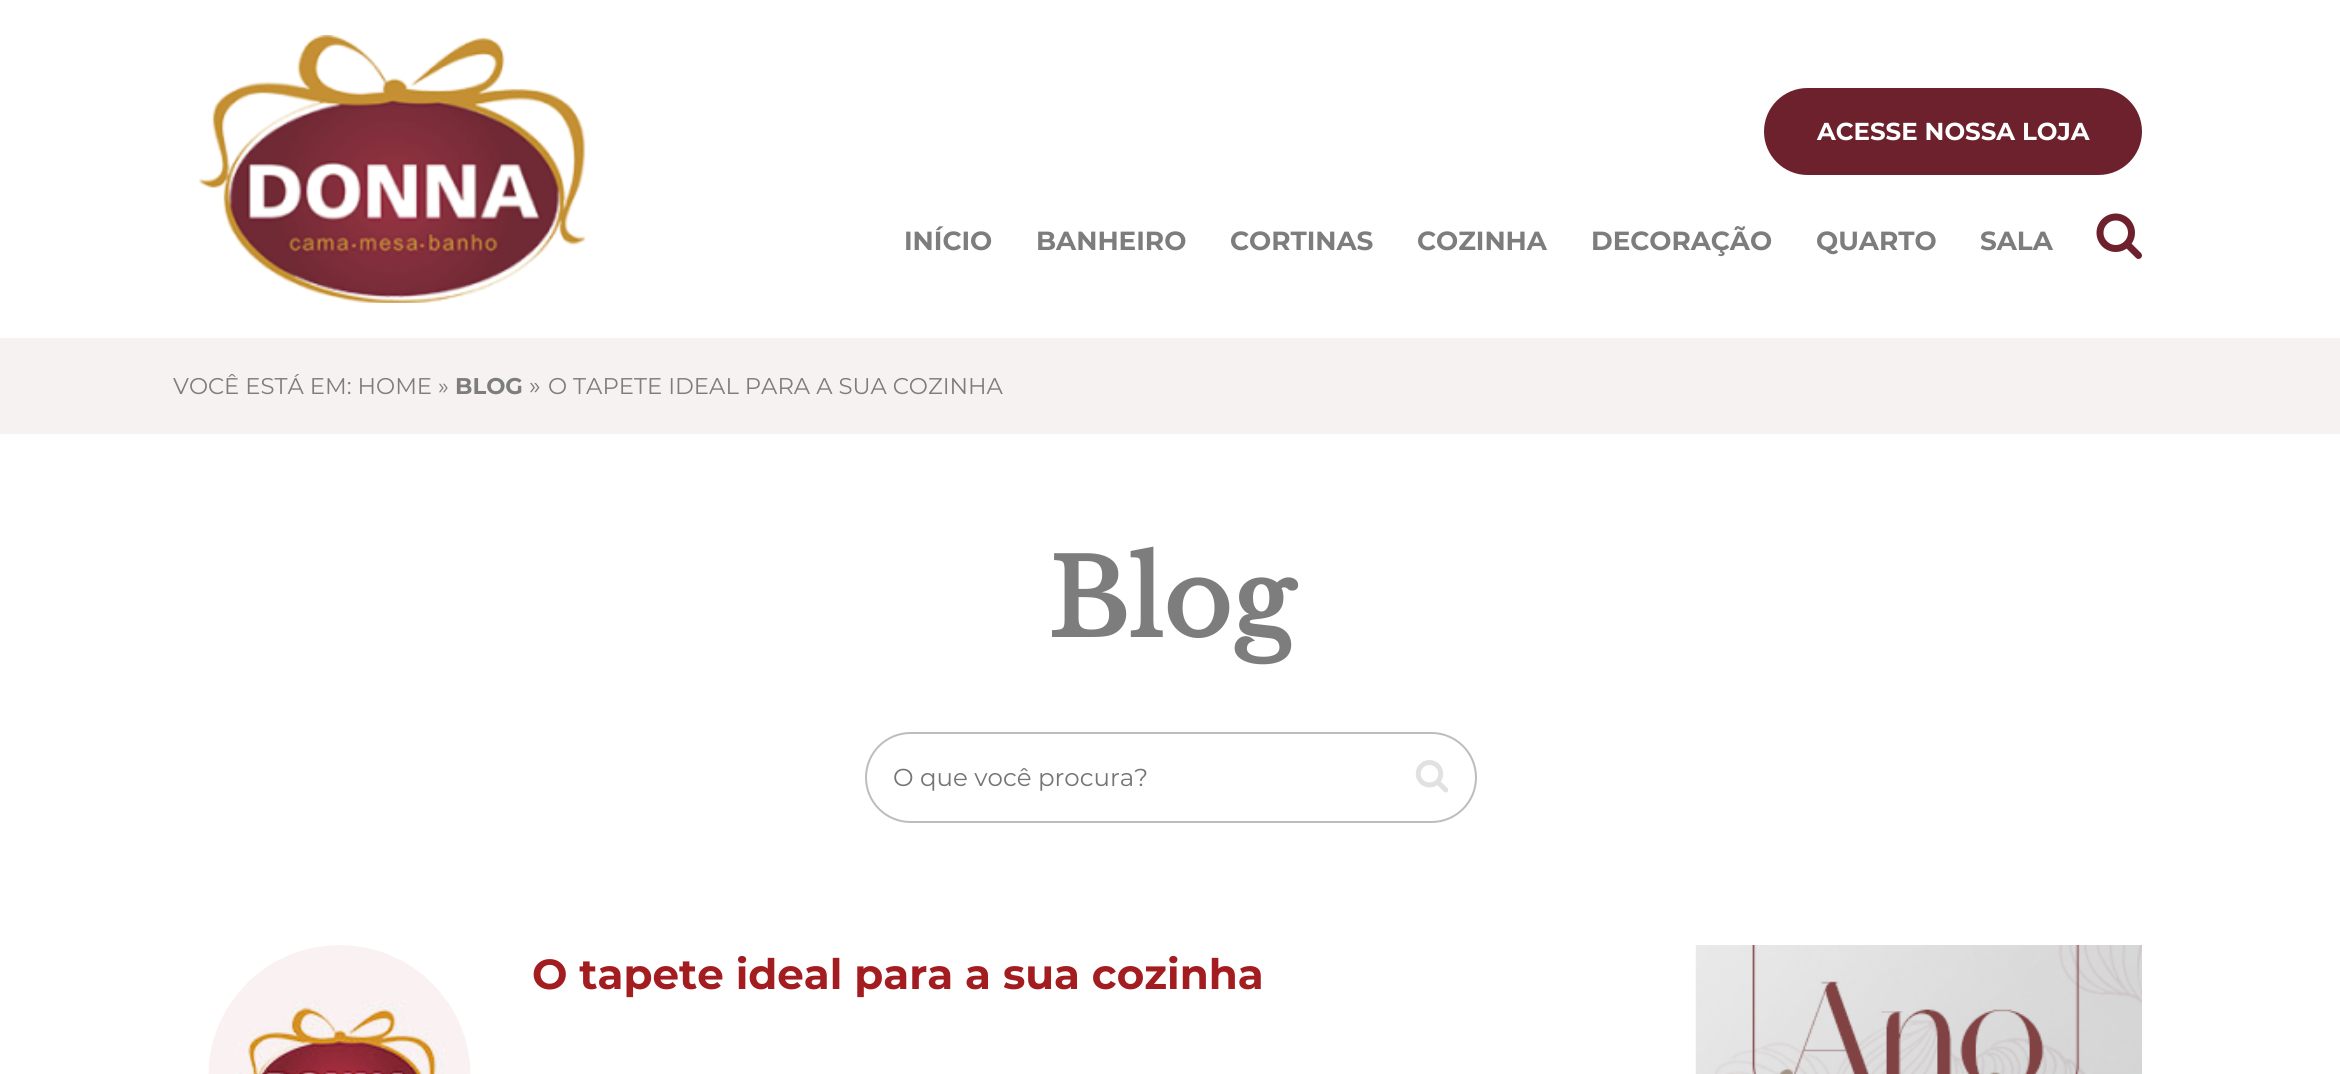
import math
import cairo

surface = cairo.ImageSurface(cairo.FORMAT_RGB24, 2340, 1074)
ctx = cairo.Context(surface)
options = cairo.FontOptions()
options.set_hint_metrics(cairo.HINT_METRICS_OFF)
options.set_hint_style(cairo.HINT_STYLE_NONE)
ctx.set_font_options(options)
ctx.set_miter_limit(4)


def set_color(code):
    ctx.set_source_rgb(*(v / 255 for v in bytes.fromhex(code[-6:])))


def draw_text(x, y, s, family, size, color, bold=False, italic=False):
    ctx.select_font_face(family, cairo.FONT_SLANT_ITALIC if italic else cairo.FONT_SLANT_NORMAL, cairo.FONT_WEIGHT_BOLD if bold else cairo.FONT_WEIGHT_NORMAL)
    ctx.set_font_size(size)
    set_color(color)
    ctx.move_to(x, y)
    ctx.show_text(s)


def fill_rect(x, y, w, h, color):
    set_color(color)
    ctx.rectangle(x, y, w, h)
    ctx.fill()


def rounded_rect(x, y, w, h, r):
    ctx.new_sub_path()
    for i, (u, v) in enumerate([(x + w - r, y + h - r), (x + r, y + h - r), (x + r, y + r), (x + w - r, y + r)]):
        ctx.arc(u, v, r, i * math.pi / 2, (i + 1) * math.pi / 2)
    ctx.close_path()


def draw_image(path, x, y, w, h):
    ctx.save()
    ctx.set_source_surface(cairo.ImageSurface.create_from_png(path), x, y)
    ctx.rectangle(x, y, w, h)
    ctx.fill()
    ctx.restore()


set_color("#ffffff")
ctx.paint()
draw_image("assets/img1.png", 199, 35, 387, 268)
set_color("#6d212c")
rounded_rect(1764, 88, 378, 87, 43.5)
ctx.fill()
draw_text(1817, 140, "ACESSE NOSSA LOJA", "Montserrat", 24.5, "#ffffff", bold=True)
draw_text(904, 250, "INÍCIO", "Montserrat", 26.25, "#7d7d7d", bold=True)
draw_text(1036, 250, "BANHEIRO", "Montserrat", 26.25, "#7d7d7d", bold=True)
draw_text(1230, 250, "CORTINAS", "Montserrat", 26.25, "#7d7d7d", bold=True)
draw_text(1417, 250, "COZINHA", "Montserrat", 26.25, "#7d7d7d", bold=True)
draw_text(1591, 250, "DECORAÇÃO", "Montserrat", 26.25, "#7d7d7d", bold=True)
draw_text(1816, 250, "QUARTO", "Montserrat", 26.25, "#7d7d7d", bold=True)
draw_text(1980, 250, "SALA", "Montserrat", 26.25, "#7d7d7d", bold=True)
draw_image("assets/img2.png", 2096, 213, 46, 46)
fill_rect(0, 338, 2340, 96, "#f6f2f2")
draw_text(173, 394, "VOCÊ ESTÁ EM: HOME »", "Montserrat", 22.75, "#7d7d7d")
draw_text(455, 394, "BLOG", "Montserrat", 22.75, "#7d7d7d", bold=True)
draw_text(529, 394, "»", "Montserrat", 24.5, "#7d7d7d")
draw_text(548, 394, "O TAPETE IDEAL PARA A SUA COZINHA", "Montserrat", 22.75, "#7d7d7d")
draw_text(1048, 637, "Blog", "Libre Baskerville", 105, "#7d7d7d", bold=True)
rounded_rect(866, 733, 610, 89, 44.5)
set_color("#bdbdbd")
ctx.stroke()
draw_text(893, 786, "O que você procura?", "Montserrat", 24.5, "#757575")
draw_image("assets/img3.png", 1415, 760, 34, 33)
draw_image("assets/img4.png", 208, 945, 263, 129)
draw_text(532, 989, "O tapete ideal para a sua cozinha", "Montserrat", 42, "#a21c20", bold=True)
draw_image("assets/img5.png", 1695, 945, 447, 129)
surface.write_to_png("output.png")
